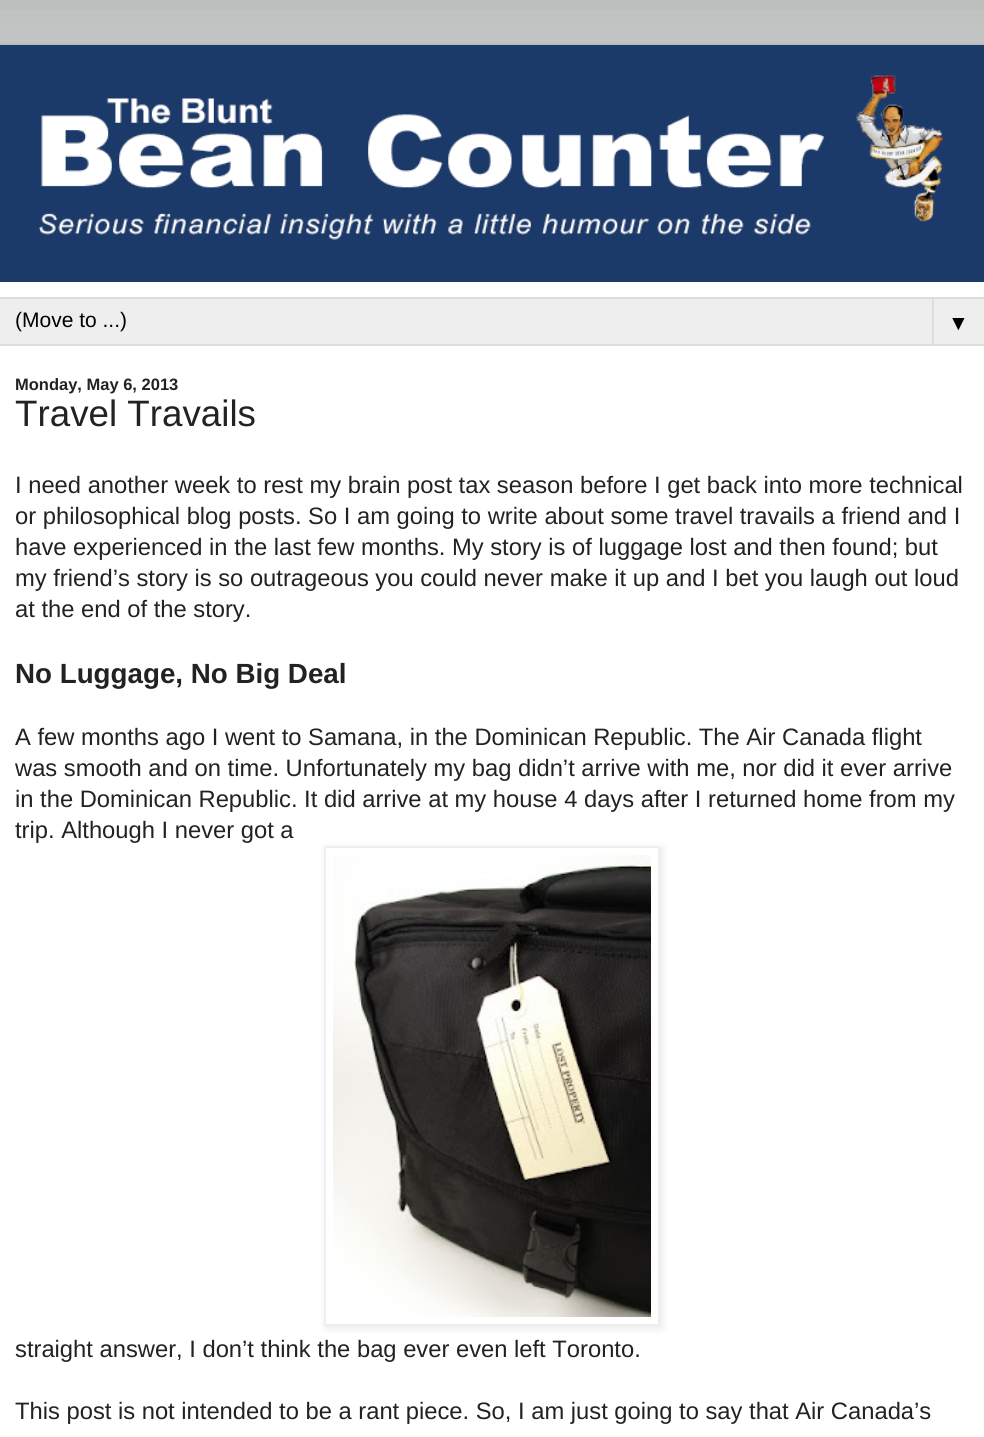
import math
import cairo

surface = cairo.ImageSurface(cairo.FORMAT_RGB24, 984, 1437)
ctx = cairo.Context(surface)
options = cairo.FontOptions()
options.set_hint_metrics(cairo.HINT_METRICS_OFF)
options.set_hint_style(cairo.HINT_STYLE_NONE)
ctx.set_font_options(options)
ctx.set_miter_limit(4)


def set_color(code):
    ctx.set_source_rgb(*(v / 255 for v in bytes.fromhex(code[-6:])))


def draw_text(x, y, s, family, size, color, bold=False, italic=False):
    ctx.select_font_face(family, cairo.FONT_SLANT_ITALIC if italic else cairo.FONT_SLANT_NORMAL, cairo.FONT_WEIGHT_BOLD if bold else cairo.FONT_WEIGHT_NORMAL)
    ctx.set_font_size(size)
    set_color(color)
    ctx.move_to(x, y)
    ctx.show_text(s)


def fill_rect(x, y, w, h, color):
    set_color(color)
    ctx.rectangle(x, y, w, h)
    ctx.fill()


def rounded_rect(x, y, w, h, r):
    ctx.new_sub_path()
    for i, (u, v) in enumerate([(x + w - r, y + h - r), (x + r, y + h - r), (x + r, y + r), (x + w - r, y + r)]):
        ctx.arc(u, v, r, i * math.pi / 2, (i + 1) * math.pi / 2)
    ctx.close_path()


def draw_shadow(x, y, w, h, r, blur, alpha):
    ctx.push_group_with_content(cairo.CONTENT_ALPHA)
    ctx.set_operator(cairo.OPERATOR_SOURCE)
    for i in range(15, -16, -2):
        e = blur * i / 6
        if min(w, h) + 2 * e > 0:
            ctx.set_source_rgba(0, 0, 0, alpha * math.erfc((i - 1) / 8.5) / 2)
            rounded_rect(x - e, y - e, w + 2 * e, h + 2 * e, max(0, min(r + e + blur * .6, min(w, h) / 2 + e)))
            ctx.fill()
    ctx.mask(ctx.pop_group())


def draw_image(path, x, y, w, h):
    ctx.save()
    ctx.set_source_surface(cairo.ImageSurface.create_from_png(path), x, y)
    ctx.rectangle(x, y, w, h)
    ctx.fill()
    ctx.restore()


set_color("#bdbfbf")
ctx.paint()
draw_image("assets/img1.png", 0, 10, 984, 35)
set_color("#000000")
draw_shadow(0, 45, 984, 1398, 0, 2, 0.15)
fill_rect(0, 282, 984, 1155, "#ffffff")
draw_image("assets/img2.png", 0, 45, 984, 237)
fill_rect(0, 299, 984, 45, "#eeeeee")
fill_rect(0, 297, 984, 2, "#dddddd")
fill_rect(0, 344, 984, 2, "#dddddd")
draw_text(15, 327, "(Move to ...)", "Liberation Sans", 21, "#000000")
fill_rect(932, 297, 2, 48, "#dddddd")
draw_text(948, 330, "▼", "Liberation Sans", 21, "#000000")
draw_text(15, 390, "Monday, May 6, 2013", "Liberation Sans", 16.5, "#222222", bold=True)
draw_text(15, 426, "Travel Travails", "Liberation Sans", 36.75, "#222222")
draw_text(15, 493, "I need another week to rest my brain post tax season before I get back into more technical", "Liberation Sans", 23.75, "#222222")
draw_text(15, 524, "or philosophical blog posts. So I am going to write about some travel travails a friend and I", "Liberation Sans", 23.75, "#222222")
draw_text(15, 555, "have experienced in the last few months. My story is of luggage lost and then found; but", "Liberation Sans", 23.75, "#222222")
draw_text(15, 586, "my friend’s story is so outrageous you could never make it up and I bet you laugh out loud", "Liberation Sans", 23.75, "#222222")
draw_text(15, 617, "at the end of the story.", "Liberation Sans", 23.75, "#222222")
draw_text(15, 683, "No Luggage, No Big Deal", "Liberation Sans", 27.75, "#222222", bold=True)
draw_text(15, 745, "A few months ago I went to Samana, in the Dominican Republic. The Air Canada flight", "Liberation Sans", 23.75, "#222222")
draw_text(15, 776, "was smooth and on time. Unfortunately my bag didn’t arrive with me, nor did it ever arrive", "Liberation Sans", 23.75, "#222222")
draw_text(15, 807, "in the Dominican Republic. It did arrive at my house 4 days after I returned home from my", "Liberation Sans", 23.75, "#222222")
draw_text(15, 838, "trip. Although I never got a", "Liberation Sans", 23.75, "#222222")
ctx.save()
ctx.set_fill_rule(cairo.FILL_RULE_EVEN_ODD)
ctx.new_path()
ctx.move_to(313, 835)
ctx.line_to(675, 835)
ctx.line_to(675, 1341)
ctx.line_to(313, 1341)
ctx.close_path()
ctx.move_to(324, 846)
ctx.line_to(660, 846)
ctx.line_to(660, 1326)
ctx.line_to(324, 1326)
ctx.close_path()
ctx.clip()
set_color("#000000")
draw_shadow(326, 848, 336, 480, 0, 4, 0.1)
ctx.restore()
ctx.rectangle(325, 847, 334, 478)
set_color("#eeeeee")
ctx.stroke()
draw_image("assets/img3.png", 333, 855, 318, 462)
draw_text(15, 1357, "straight answer, I don’t think the bag ever even left Toronto.", "Liberation Sans", 23.75, "#222222")
draw_text(15, 1419, "This post is not intended to be a rant piece. So, I am just going to say that Air Canada’s", "Liberation Sans", 23.75, "#222222")
surface.write_to_png("output.png")
